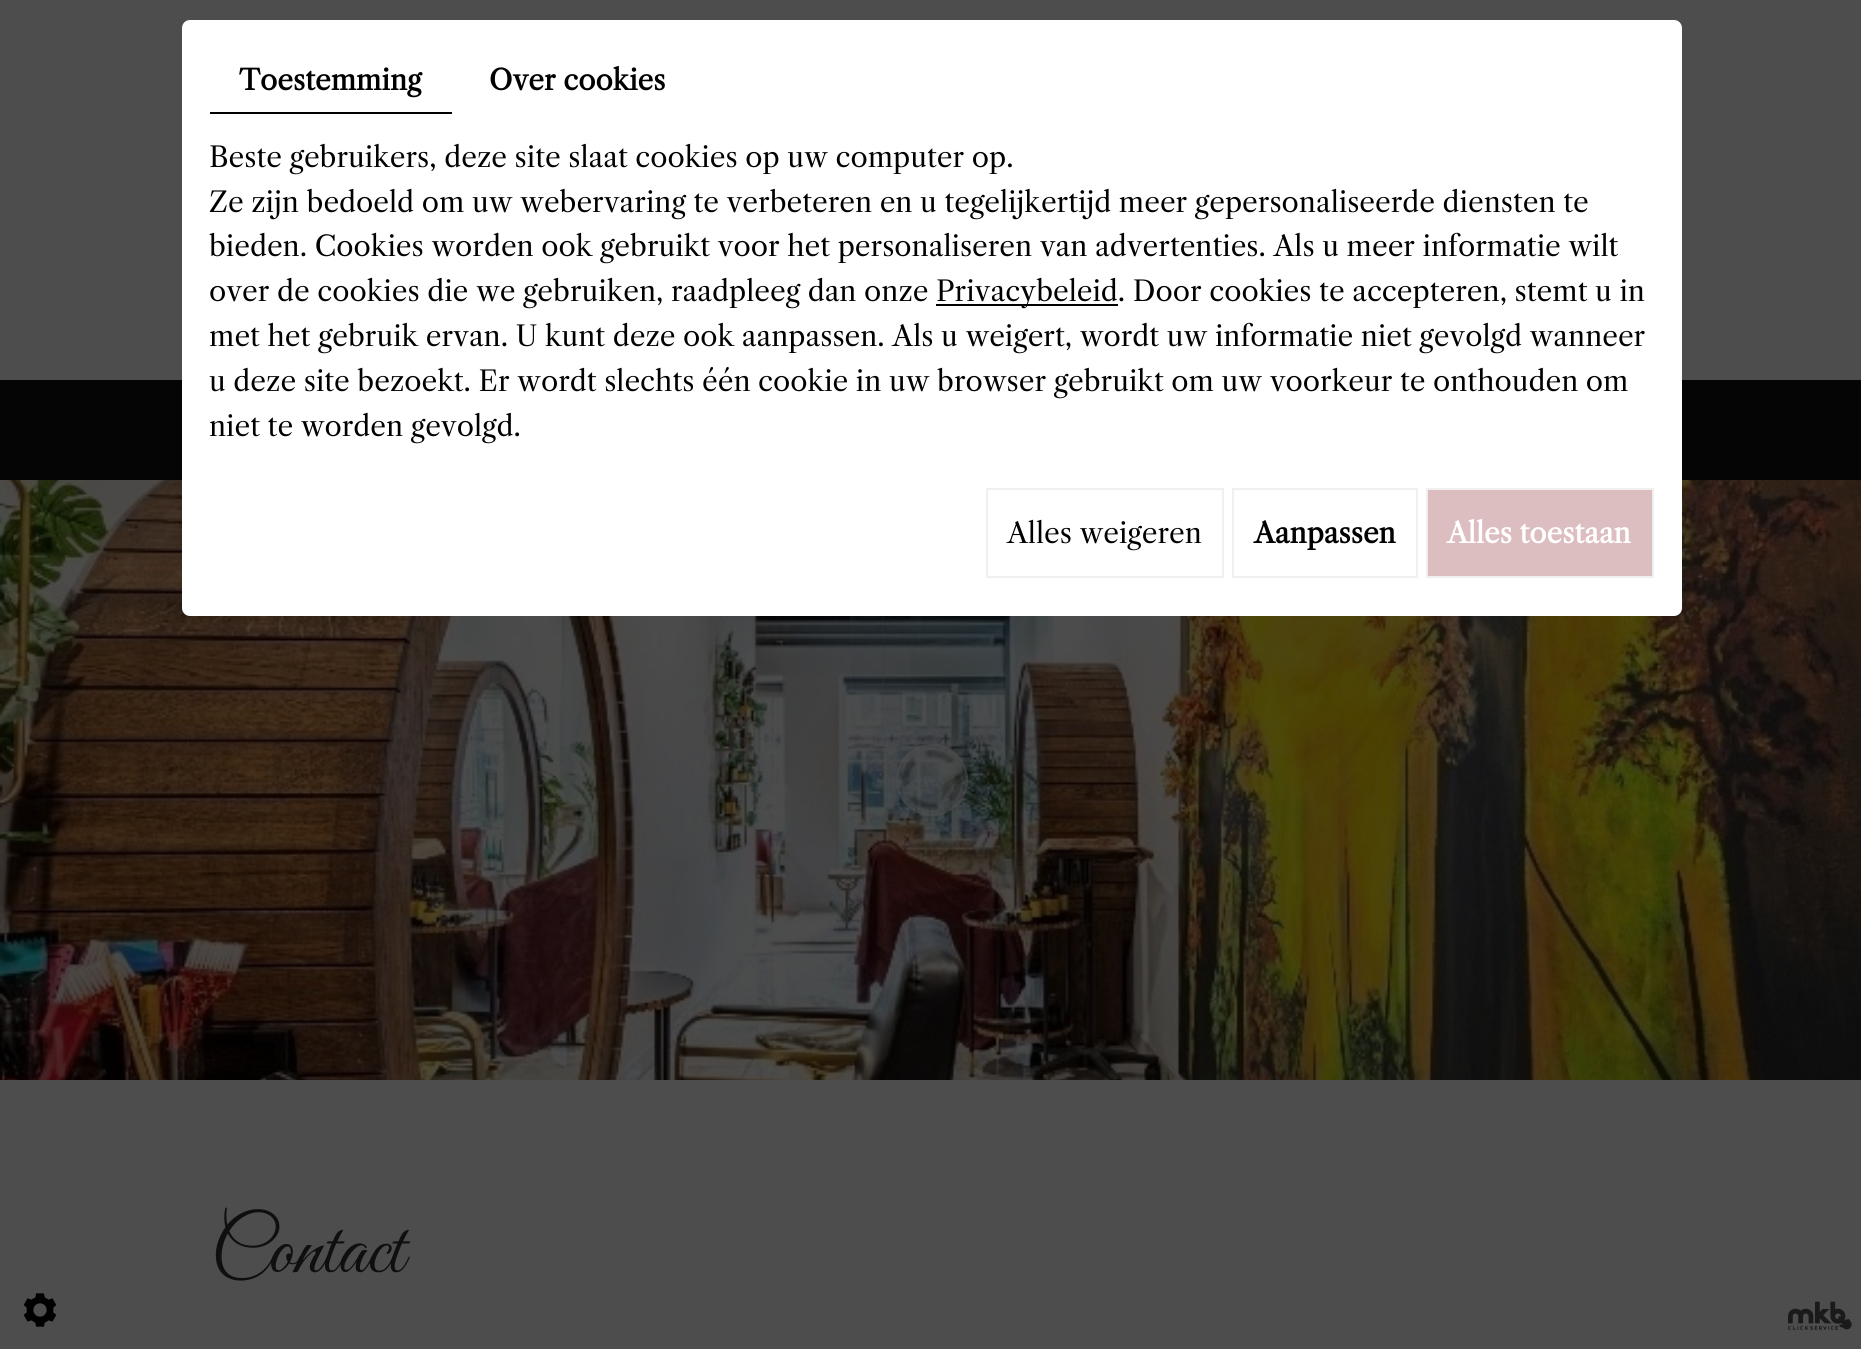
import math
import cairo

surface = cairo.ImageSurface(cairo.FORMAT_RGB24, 1861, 1349)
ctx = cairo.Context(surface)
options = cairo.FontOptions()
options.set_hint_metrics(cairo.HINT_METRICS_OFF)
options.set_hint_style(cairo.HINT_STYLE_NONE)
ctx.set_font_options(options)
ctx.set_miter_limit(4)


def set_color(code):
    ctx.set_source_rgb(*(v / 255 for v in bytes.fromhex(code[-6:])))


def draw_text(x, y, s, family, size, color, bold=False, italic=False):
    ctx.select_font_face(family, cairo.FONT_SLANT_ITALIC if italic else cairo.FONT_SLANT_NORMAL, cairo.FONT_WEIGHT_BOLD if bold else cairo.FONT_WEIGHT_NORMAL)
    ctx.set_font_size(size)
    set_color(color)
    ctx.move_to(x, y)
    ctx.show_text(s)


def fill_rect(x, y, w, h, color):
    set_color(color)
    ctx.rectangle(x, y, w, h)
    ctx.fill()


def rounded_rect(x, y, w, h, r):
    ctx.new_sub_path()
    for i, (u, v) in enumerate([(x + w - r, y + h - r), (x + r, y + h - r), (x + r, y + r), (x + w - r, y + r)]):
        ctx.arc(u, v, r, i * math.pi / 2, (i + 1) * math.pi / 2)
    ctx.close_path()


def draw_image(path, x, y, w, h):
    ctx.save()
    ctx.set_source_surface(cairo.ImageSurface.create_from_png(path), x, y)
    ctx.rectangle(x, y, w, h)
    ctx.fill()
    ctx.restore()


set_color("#4d4d4d")
ctx.paint()
fill_rect(0, 380, 1861, 100, "#050505")
draw_image("assets/img1.png", 0, 480, 1861, 600)
set_color("#ffffff")
rounded_rect(182, 20, 1500, 596, 8)
ctx.fill()
fill_rect(210, 112, 242, 2, "#000000")
draw_text(239, 90, "Toestemming", "Libre Caslon Text", 28, "#000000", bold=True)
draw_text(489, 90, "Over cookies", "Libre Caslon Text", 28, "#000000", bold=True)
draw_text(209, 167, "Beste gebruikers, deze site slaat cookies op uw computer op.", "Libre Caslon Text", 28, "#000000")
draw_text(209, 212, "Ze zijn bedoeld om uw webervaring te verbeteren en u tegelijkertijd meer gepersonaliseerde diensten te", "Libre Caslon Text", 28, "#000000")
draw_text(209, 256, "bieden. Cookies worden ook gebruikt voor het personaliseren van advertenties. Als u meer informatie wilt", "Libre Caslon Text", 28, "#000000")
draw_text(209, 301, "over de cookies die we gebruiken, raadpleeg dan onze", "Libre Caslon Text", 28, "#000000")
fill_rect(936, 304, 182, 2, "#000000")
draw_text(936, 301, "Privacybeleid. Door cookies te accepteren, stemt u in", "Libre Caslon Text", 28, "#000000")
draw_text(209, 346, "met het gebruik ervan. U kunt deze ook aanpassen. Als u weigert, wordt uw informatie niet gevolgd wanneer", "Libre Caslon Text", 28, "#000000")
draw_text(209, 391, "u deze site bezoekt. Er wordt slechts één cookie in uw browser gebruikt om uw voorkeur te onthouden om", "Libre Caslon Text", 28, "#000000")
draw_text(209, 436, "niet te worden gevolgd.", "Libre Caslon Text", 28, "#000000")
ctx.rectangle(987, 489, 236, 88)
set_color("#f0f0f0")
ctx.stroke()
draw_text(1007, 543, "Alles weigeren", "Libre Caslon Text", 28, "#000000")
ctx.rectangle(1233, 489, 184, 88)
set_color("#f0f0f0")
ctx.stroke()
draw_text(1254, 543, "Aanpassen", "Libre Caslon Text", 28, "#000000", bold=True)
set_color("#dcbec0")
ctx.rectangle(1427, 489, 226, 88)
ctx.fill_preserve()
set_color("#f0f0f0")
ctx.stroke()
draw_text(1447, 543, "Alles toestaan", "Libre Caslon Text", 28, "#ffffff", bold=True)
ctx.set_source_rgba(0.302, 0.302, 0.302, 0.35)
ctx.new_path()
ctx.arc(932, 780, 36, 0, 2 * math.pi)
ctx.fill()
draw_image("assets/img2.png", 902, 750, 60, 60)
ctx.arc(932, 780, 35, 0, 2 * math.pi)
ctx.set_source_rgba(0.302, 0.302, 0.302, 0.39)
ctx.stroke()
draw_text(211, 1272, "Contact", "Great Vibes", 80, "#0f0f0f")
draw_image("assets/img3.png", 23, 1293, 34, 34)
draw_image("assets/img4.png", 1788, 1301, 64, 29)
surface.write_to_png("output.png")
